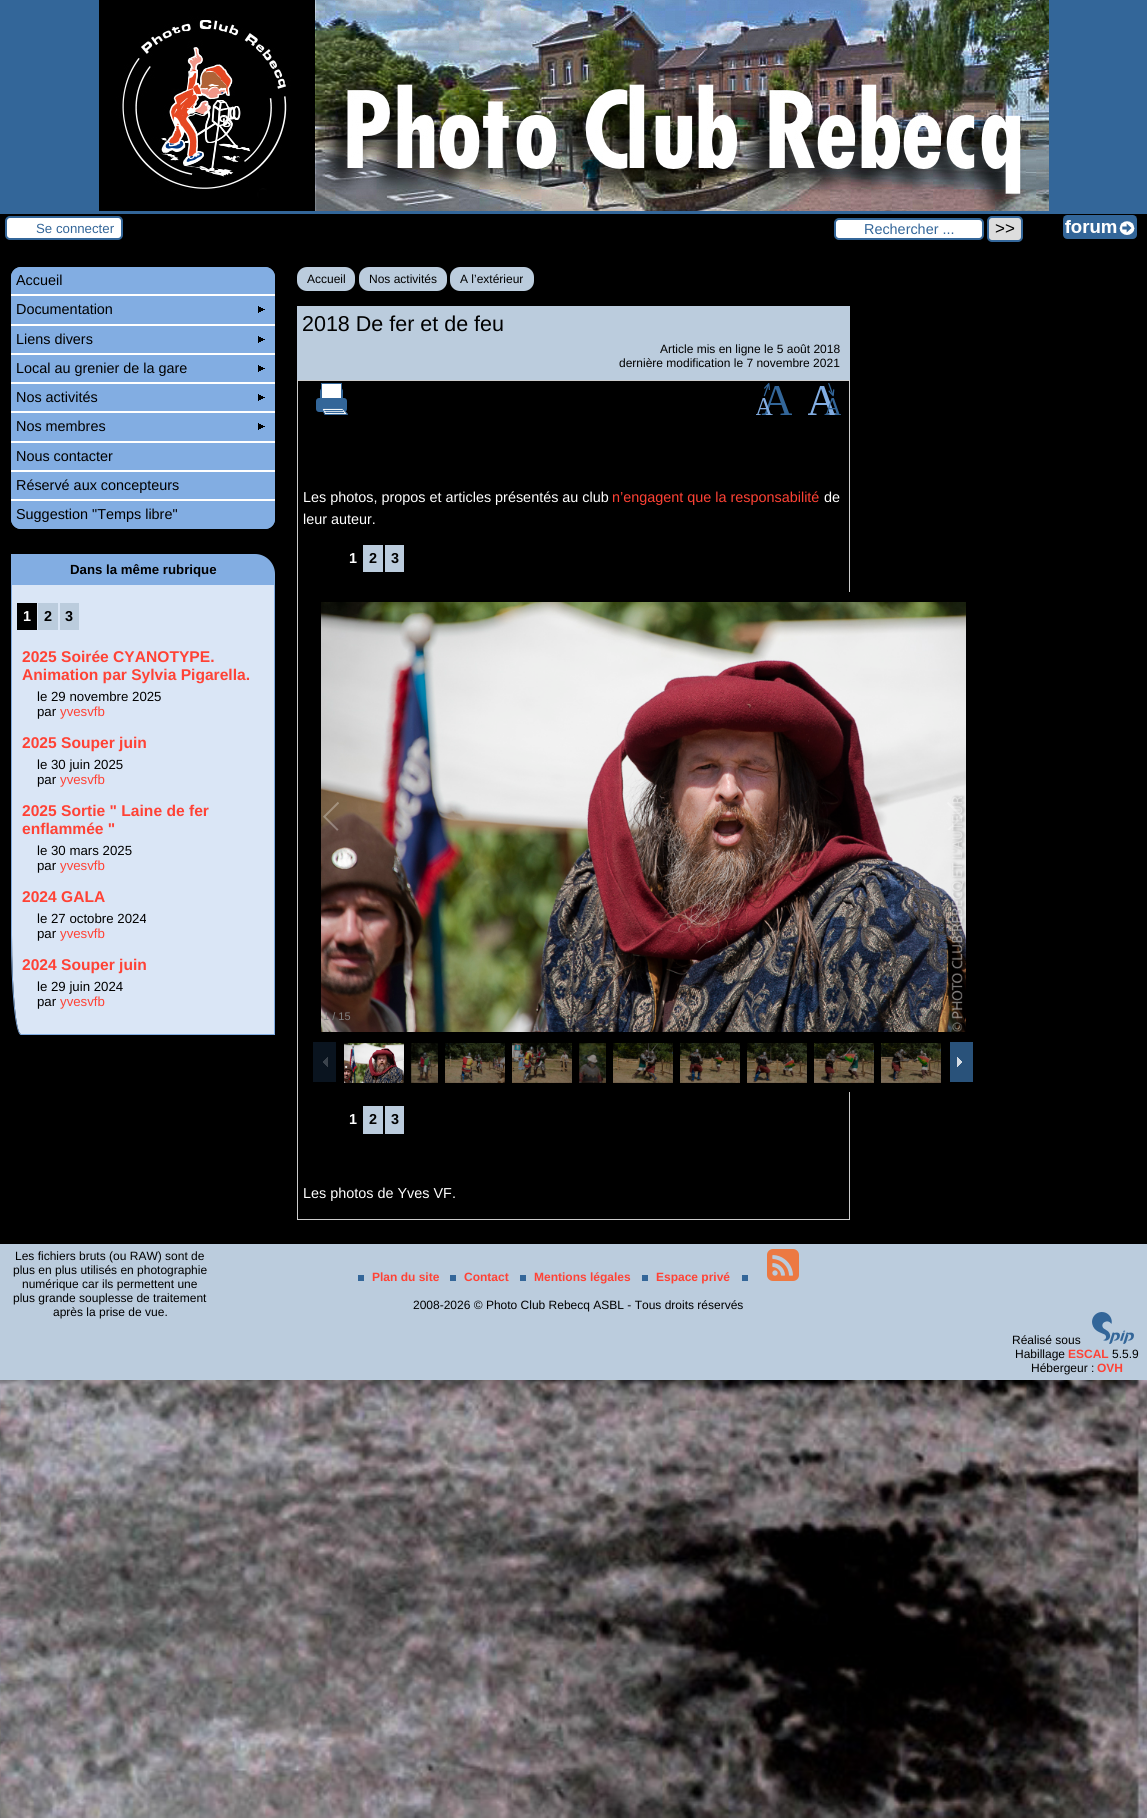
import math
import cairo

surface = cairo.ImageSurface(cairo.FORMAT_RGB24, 1147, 1818)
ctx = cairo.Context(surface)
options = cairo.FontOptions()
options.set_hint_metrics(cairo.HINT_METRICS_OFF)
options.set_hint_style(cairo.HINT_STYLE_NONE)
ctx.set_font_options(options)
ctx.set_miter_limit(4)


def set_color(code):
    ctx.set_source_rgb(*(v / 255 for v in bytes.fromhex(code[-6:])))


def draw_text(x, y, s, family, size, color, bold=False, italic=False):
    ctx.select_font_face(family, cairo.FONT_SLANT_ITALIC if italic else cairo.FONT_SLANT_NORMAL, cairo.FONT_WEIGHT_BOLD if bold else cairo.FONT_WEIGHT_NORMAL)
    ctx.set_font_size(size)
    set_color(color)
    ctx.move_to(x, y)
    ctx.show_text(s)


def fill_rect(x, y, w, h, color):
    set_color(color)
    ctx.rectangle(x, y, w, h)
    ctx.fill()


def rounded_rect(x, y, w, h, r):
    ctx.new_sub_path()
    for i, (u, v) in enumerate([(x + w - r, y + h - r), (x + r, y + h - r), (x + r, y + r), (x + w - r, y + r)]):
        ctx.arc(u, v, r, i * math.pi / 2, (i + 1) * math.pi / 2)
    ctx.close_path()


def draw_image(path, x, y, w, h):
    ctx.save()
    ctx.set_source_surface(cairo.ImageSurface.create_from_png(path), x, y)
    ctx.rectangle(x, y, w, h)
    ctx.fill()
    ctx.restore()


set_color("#ffffff")
ctx.paint()
draw_image("assets/img1.png", 0, 1380, 1147, 438)
fill_rect(0, 214, 1147, 1030, "#000000")
fill_rect(0, 0, 1147, 214, "#336699")
draw_image("assets/img2.png", 99, 0, 950, 211)
set_color("#ffffff")
rounded_rect(6, 217, 116, 22, 4)
ctx.fill_preserve()
set_color("#336699")
ctx.stroke()
draw_text(36, 233, "Se connecter", "Liberation Sans", 13.25, "#336699")
set_color("#ffffff")
rounded_rect(835, 219, 148, 20, 4)
ctx.fill_preserve()
set_color("#336699")
ctx.stroke()
draw_text(864, 234, "Rechercher ...", "Liberation Sans", 14.4, "#336699")
set_color("#dddddd")
rounded_rect(988, 217, 34, 24, 4)
ctx.fill_preserve()
set_color("#336699")
ctx.stroke()
draw_text(995, 234, ">>", "Liberation Sans", 17, "#000000")
draw_image("assets/img3.png", 1063, 215, 74, 24)
set_color("#82ade2")
rounded_rect(11, 267, 264, 262, 10)
ctx.fill()
fill_rect(11, 294, 264, 2, "#ffffff")
set_color("#82ade2")
ctx.new_path()
ctx.move_to(21, 267)
ctx.line_to(265, 267)
ctx.curve_to(270.5, 267, 275, 271.5, 275, 277)
ctx.line_to(275, 294)
ctx.line_to(11, 294)
ctx.line_to(11, 277)
ctx.curve_to(11, 271.5, 15.5, 267, 21, 267)
ctx.close_path()
ctx.fill()
draw_text(16, 285, "Accueil", "Liberation Sans", 14.4, "#000000")
fill_rect(11, 324, 264, 2, "#ffffff")
draw_text(16, 314, "Documentation", "Liberation Sans", 14.4, "#000000")
draw_image("assets/img4.png", 258, 306, 7, 7)
fill_rect(11, 353, 264, 2, "#ffffff")
draw_text(16, 344, "Liens divers", "Liberation Sans", 14.4, "#000000")
draw_image("assets/img4.png", 258, 336, 7, 7)
fill_rect(11, 382, 264, 2, "#ffffff")
draw_text(16, 373, "Local au grenier de la gare", "Liberation Sans", 14.4, "#000000")
draw_image("assets/img4.png", 258, 365, 7, 7)
fill_rect(11, 411, 264, 2, "#ffffff")
draw_text(16, 402, "Nos activités", "Liberation Sans", 14.4, "#000000")
draw_image("assets/img4.png", 258, 394, 7, 7)
fill_rect(11, 441, 264, 2, "#ffffff")
draw_text(16, 431, "Nos membres", "Liberation Sans", 14.4, "#000000")
draw_image("assets/img4.png", 258, 423, 7, 7)
fill_rect(11, 470, 264, 2, "#ffffff")
draw_text(16, 461, "Nous contacter", "Liberation Sans", 14.4, "#000000")
fill_rect(11, 499, 264, 2, "#ffffff")
draw_text(16, 490, "Réservé aux concepteurs", "Liberation Sans", 14.4, "#000000")
set_color("#82ade2")
ctx.new_path()
ctx.move_to(11, 501)
ctx.line_to(275, 501)
ctx.line_to(275, 519)
ctx.curve_to(275, 524.5, 270.5, 529, 265, 529)
ctx.line_to(21, 529)
ctx.curve_to(15.5, 529, 11, 524.5, 11, 519)
ctx.close_path()
ctx.fill()
draw_text(16, 519, "Suggestion \"Temps libre\"", "Liberation Sans", 14.4, "#000000")
set_color("#82ade2")
ctx.new_path()
ctx.move_to(11, 554)
ctx.line_to(255, 554)
ctx.curve_to(266, 554, 275, 563, 275, 574)
ctx.line_to(275, 585)
ctx.line_to(11, 585)
ctx.close_path()
ctx.fill()
draw_text(70, 574, "Dans la même rubrique", "Liberation Sans", 13.25, "#000000", bold=True)
set_color("#dae6f6")
ctx.new_path()
ctx.move_to(12, 585)
ctx.line_to(274, 585)
ctx.line_to(274, 1034)
ctx.line_to(21, 1034)
ctx.curve_to(16, 1034, 12, 990, 12, 935)
ctx.close_path()
ctx.fill()
set_color("#82ade2")
ctx.set_fill_rule(cairo.FILL_RULE_EVEN_ODD)
ctx.new_path()
ctx.move_to(11, 585)
ctx.line_to(275, 585)
ctx.line_to(275, 1035)
ctx.line_to(21, 1035)
ctx.curve_to(15, 1035, 11, 990, 11, 935)
ctx.close_path()
ctx.move_to(12, 585)
ctx.line_to(274, 585)
ctx.line_to(274, 1034)
ctx.line_to(21, 1034)
ctx.curve_to(16, 1034, 12, 990, 12, 935)
ctx.close_path()
ctx.fill()
fill_rect(17, 603, 20, 27, "#000000")
draw_text(23, 621, "1", "Liberation Sans", 14.4, "#ffffff", bold=True)
fill_rect(38, 603, 20, 27, "#bbccdd")
draw_text(44, 621, "2", "Liberation Sans", 14.4, "#000000", bold=True)
fill_rect(60, 603, 19, 27, "#bbccdd")
draw_text(65, 621, "3", "Liberation Sans", 14.4, "#000000", bold=True)
draw_text(22, 662, "2025 Soirée CYANOTYPE.", "Liberation Sans", 15.6, "#ff4235", bold=True)
draw_text(22, 680, "Animation par Sylvia Pigarella.", "Liberation Sans", 15.6, "#ff4235", bold=True)
draw_text(37, 701, "le 29 novembre 2025", "Liberation Sans", 13.25, "#000000")
draw_text(37, 716, "par", "Liberation Sans", 13.25, "#000000")
draw_text(60, 716, "yvesvfb", "Liberation Sans", 13.25, "#ff4235")
draw_text(22, 748, "2025 Souper juin", "Liberation Sans", 15.6, "#ff4235", bold=True)
draw_text(37, 769, "le 30 juin 2025", "Liberation Sans", 13.25, "#000000")
draw_text(37, 784, "par", "Liberation Sans", 13.25, "#000000")
draw_text(60, 784, "yvesvfb", "Liberation Sans", 13.25, "#ff4235")
draw_text(22, 816, "2025 Sortie \" Laine de fer", "Liberation Sans", 15.6, "#ff4235", bold=True)
draw_text(22, 834, "enflammée \"", "Liberation Sans", 15.6, "#ff4235", bold=True)
draw_text(37, 855, "le 30 mars 2025", "Liberation Sans", 13.25, "#000000")
draw_text(37, 870, "par", "Liberation Sans", 13.25, "#000000")
draw_text(60, 870, "yvesvfb", "Liberation Sans", 13.25, "#ff4235")
draw_text(22, 902, "2024 GALA", "Liberation Sans", 15.6, "#ff4235", bold=True)
draw_text(37, 923, "le 27 octobre 2024", "Liberation Sans", 13.25, "#000000")
draw_text(37, 938, "par", "Liberation Sans", 13.25, "#000000")
draw_text(60, 938, "yvesvfb", "Liberation Sans", 13.25, "#ff4235")
draw_text(22, 970, "2024 Souper juin", "Liberation Sans", 15.6, "#ff4235", bold=True)
draw_text(37, 991, "le 29 juin 2024", "Liberation Sans", 13.25, "#000000")
draw_text(37, 1006, "par", "Liberation Sans", 13.25, "#000000")
draw_text(60, 1006, "yvesvfb", "Liberation Sans", 13.25, "#ff4235")
set_color("#bbccdd")
rounded_rect(297, 267, 58, 24, 10)
ctx.fill()
draw_text(307, 283, "Accueil", "Liberation Sans", 12, "#000000")
set_color("#bbccdd")
rounded_rect(359, 267, 88, 24, 10)
ctx.fill()
draw_text(369, 283, "Nos activités", "Liberation Sans", 12, "#000000")
set_color("#bbccdd")
rounded_rect(450, 267, 84, 24, 10)
ctx.fill()
draw_text(460, 283, "A l’extérieur", "Liberation Sans", 12, "#000000")
fill_rect(297, 306, 553, 74, "#bbccdd")
draw_text(302, 331, "2018 De fer et de feu", "Liberation Sans", 21.5, "#000000")
draw_text(660, 353, "Article mis en ligne le 5 août 2018", "Liberation Sans", 12, "#000000")
draw_text(619, 367, "dernière modification le 7 novembre 2021", "Liberation Sans", 12, "#000000")
ctx.rectangle(297.5, 380.5, 552, 839)
set_color("#cccccc")
ctx.set_line_width(1)
ctx.stroke()
draw_image("assets/img5.png", 316, 383, 32, 32)
draw_image("assets/img6.png", 756, 383, 36, 32)
draw_image("assets/img7.png", 808, 383, 33, 32)
draw_text(303, 502, "Les photos, propos et articles présentés au club", "Liberation Sans", 14.4, "#ffffff")
draw_text(612, 502, "n’engagent que la responsabilité", "Liberation Sans", 14.4, "#ff4235")
draw_text(824, 502, "de", "Liberation Sans", 14.4, "#ffffff")
draw_text(303, 524, "leur auteur.", "Liberation Sans", 14.4, "#ffffff")
draw_text(349, 563, "1", "Liberation Sans", 14.4, "#ffffff", bold=True)
fill_rect(363, 545, 20, 27, "#bbccdd")
draw_text(369, 563, "2", "Liberation Sans", 14.4, "#000000", bold=True)
fill_rect(385, 545, 19, 27, "#bbccdd")
draw_text(391, 563, "3", "Liberation Sans", 14.4, "#000000", bold=True)
fill_rect(849, 592, 1, 500, "#000000")
draw_image("assets/img8.png", 321, 602, 645, 430)
draw_image("assets/img9.png", 323, 802, 16, 29)
draw_image("assets/img10.png", 947, 802, 16, 28)
draw_text(323, 1020, "1 / 15", "Liberation Sans", 11, "#808080")
fill_rect(313, 1042, 23, 40, "#0a141f")
draw_image("assets/img11.png", 323, 1057, 5, 10)
draw_image("assets/img12.png", 344, 1043, 60, 40)
draw_image("assets/img13.png", 411, 1043, 27, 40)
draw_image("assets/img14.png", 445, 1043, 60, 40)
draw_image("assets/img15.png", 512, 1043, 60, 40)
draw_image("assets/img16.png", 579, 1043, 27, 40)
draw_image("assets/img17.png", 613, 1043, 60, 40)
draw_image("assets/img18.png", 680, 1043, 60, 40)
draw_image("assets/img19.png", 747, 1043, 60, 40)
draw_image("assets/img20.png", 814, 1043, 60, 40)
draw_image("assets/img21.png", 881, 1043, 60, 40)
fill_rect(950, 1042, 23, 40, "#29527a")
draw_image("assets/img22.png", 957, 1057, 5, 10)
draw_text(349, 1124, "1", "Liberation Sans", 14.4, "#ffffff", bold=True)
fill_rect(363, 1106, 20, 28, "#bbccdd")
draw_text(369, 1124, "2", "Liberation Sans", 14.4, "#000000", bold=True)
fill_rect(385, 1106, 19, 28, "#bbccdd")
draw_text(391, 1124, "3", "Liberation Sans", 14.4, "#000000", bold=True)
draw_text(303, 1198, "Les photos de Yves VF.", "Liberation Sans", 14.4, "#ffffff")
fill_rect(0, 1244, 1147, 136, "#bbccdd")
draw_text(15, 1260, "Les fichiers bruts (ou RAW) sont de", "Liberation Sans", 12, "#000000")
draw_text(13, 1274, "plus en plus utilisés en photographie", "Liberation Sans", 12, "#000000")
draw_text(22, 1288, "numérique car ils permettent une", "Liberation Sans", 12, "#000000")
draw_text(13, 1302, "plus grande souplesse de traitement", "Liberation Sans", 12, "#000000")
draw_text(53, 1316, "après la prise de vue.", "Liberation Sans", 12, "#000000")
draw_text(372, 1281, "Plan du site", "Liberation Sans", 12, "#ff4235", bold=True)
fill_rect(358, 1275, 6, 6, "#336699")
draw_text(464, 1281, "Contact", "Liberation Sans", 12, "#ff4235", bold=True)
fill_rect(450, 1275, 6, 6, "#336699")
draw_text(534, 1281, "Mentions légales", "Liberation Sans", 12, "#ff4235", bold=True)
fill_rect(520, 1275, 6, 6, "#336699")
draw_text(656, 1281, "Espace privé", "Liberation Sans", 12, "#ff4235", bold=True)
fill_rect(642, 1275, 6, 6, "#336699")
fill_rect(742, 1275, 6, 6, "#336699")
draw_image("assets/img23.png", 767, 1249, 32, 32)
draw_text(413, 1309, "2008-2026 © Photo Club Rebecq ASBL - Tous droits réservés", "Liberation Sans", 12, "#000000")
draw_text(1012, 1344, "Réalisé sous", "Liberation Sans", 12, "#000000")
draw_image("assets/img24.png", 1092, 1312, 42, 32)
draw_text(1015, 1358, "Habillage", "Liberation Sans", 12, "#000000")
draw_text(1068, 1358, "ESCAL", "Liberation Sans", 12, "#ff4235", bold=True)
draw_text(1112, 1358, "5.5.9", "Liberation Sans", 12, "#000000")
draw_text(1031, 1372, "Hébergeur :", "Liberation Sans", 12, "#000000")
draw_text(1097, 1372, "OVH", "Liberation Sans", 12, "#ff4235", bold=True)
surface.write_to_png("output.png")
